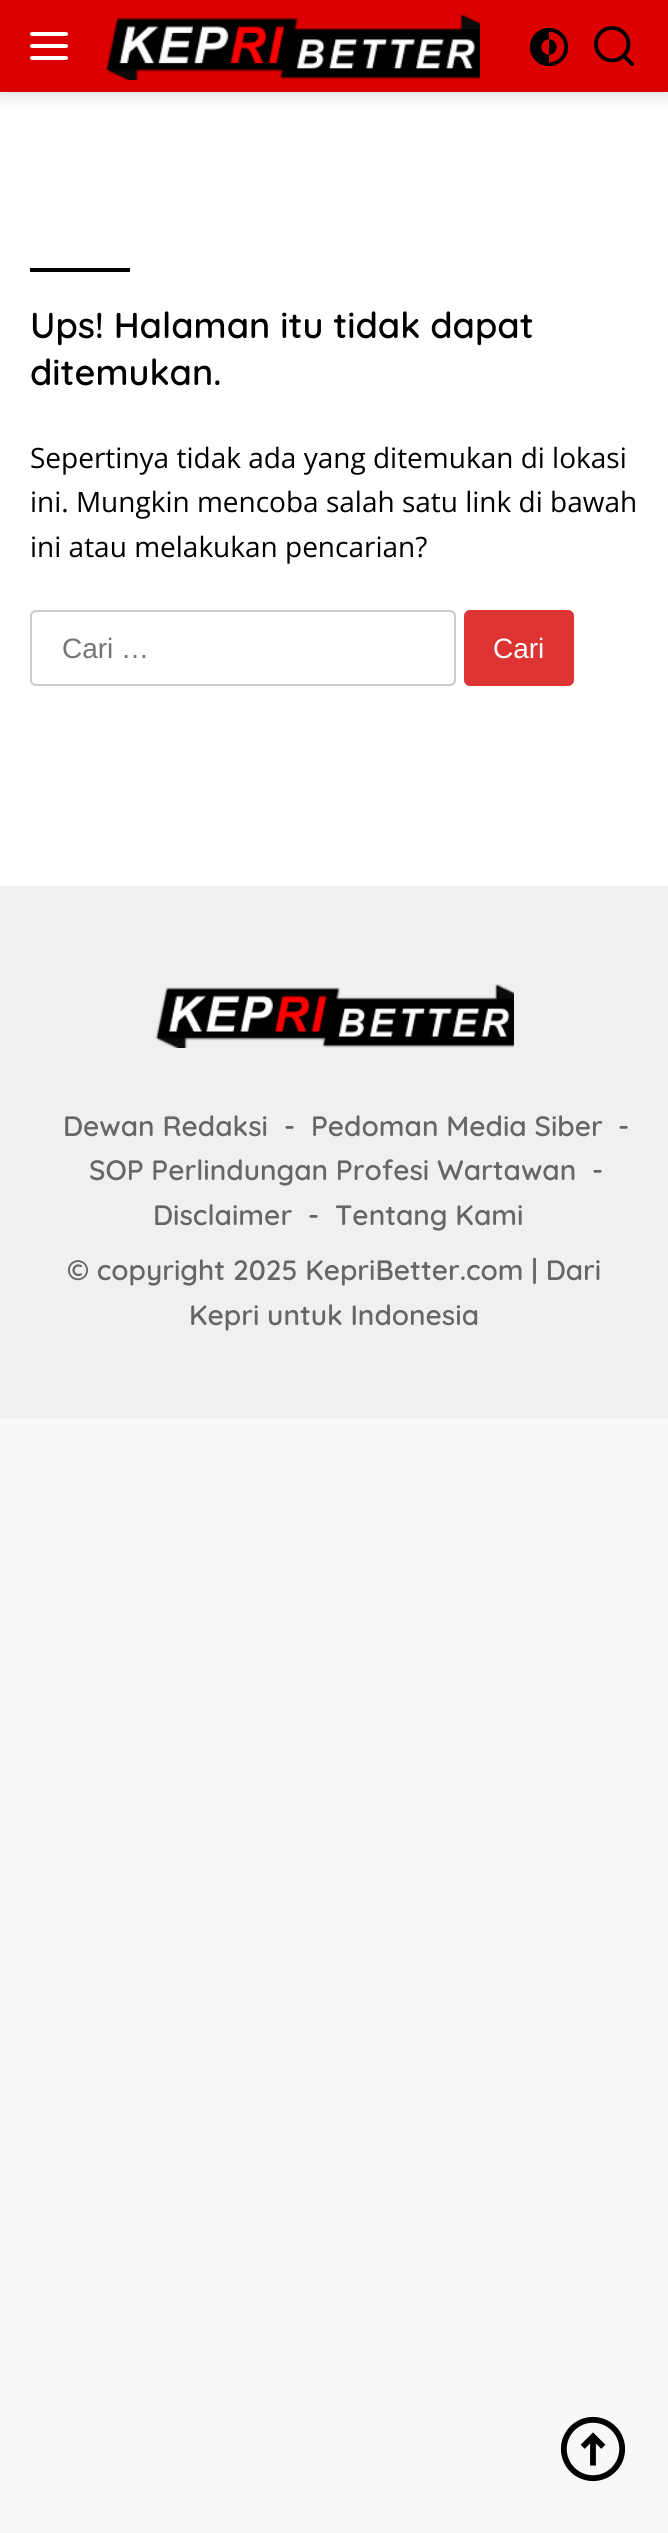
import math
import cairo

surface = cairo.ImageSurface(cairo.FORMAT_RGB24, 668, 2533)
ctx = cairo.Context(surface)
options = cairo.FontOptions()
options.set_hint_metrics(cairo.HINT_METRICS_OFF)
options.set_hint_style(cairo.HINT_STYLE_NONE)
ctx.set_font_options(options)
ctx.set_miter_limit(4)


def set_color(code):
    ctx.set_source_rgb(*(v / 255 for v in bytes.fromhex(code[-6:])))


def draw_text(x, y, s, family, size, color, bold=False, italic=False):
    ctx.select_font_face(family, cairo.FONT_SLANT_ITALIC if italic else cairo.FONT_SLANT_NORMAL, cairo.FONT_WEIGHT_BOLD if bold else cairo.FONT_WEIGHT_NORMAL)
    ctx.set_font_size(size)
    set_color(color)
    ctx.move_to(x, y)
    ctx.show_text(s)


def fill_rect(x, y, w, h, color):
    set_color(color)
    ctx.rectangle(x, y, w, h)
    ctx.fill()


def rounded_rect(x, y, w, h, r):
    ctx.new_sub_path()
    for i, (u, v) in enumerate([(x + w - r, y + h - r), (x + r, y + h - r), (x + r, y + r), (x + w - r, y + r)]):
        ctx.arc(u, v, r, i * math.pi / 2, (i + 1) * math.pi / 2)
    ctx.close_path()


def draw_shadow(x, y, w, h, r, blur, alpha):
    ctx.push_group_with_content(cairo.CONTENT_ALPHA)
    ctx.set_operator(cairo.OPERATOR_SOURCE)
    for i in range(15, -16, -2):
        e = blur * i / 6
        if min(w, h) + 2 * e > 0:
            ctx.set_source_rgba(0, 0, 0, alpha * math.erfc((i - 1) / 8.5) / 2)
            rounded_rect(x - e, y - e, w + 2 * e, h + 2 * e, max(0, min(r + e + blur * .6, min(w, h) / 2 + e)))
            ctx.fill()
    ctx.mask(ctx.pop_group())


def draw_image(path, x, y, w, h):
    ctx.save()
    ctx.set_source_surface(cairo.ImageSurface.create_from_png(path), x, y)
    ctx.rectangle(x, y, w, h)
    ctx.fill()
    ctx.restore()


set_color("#f8f8f8")
ctx.paint()
fill_rect(0, 92, 668, 794, "#ffffff")
set_color("#000000")
draw_shadow(0, 0, 668, 92, 0, 10, 0.2)
fill_rect(0, 0, 668, 92, "#dd0000")
set_color("#ffffff")
rounded_rect(30, 32, 38, 4, 2)
ctx.fill()
rounded_rect(30, 44, 38, 4, 2)
ctx.fill()
rounded_rect(30, 56, 38, 4, 2)
ctx.fill()
draw_image("assets/img1.png", 105, 13, 375, 67)
draw_image("assets/img2.png", 529, 27, 40, 40)
ctx.new_path()
ctx.move_to(632, 64)
ctx.line_to(623.5, 55.5)
ctx.move_to(628.5, 44)
ctx.curve_to(628.5, 53, 621, 60.5, 612, 60.5)
ctx.curve_to(603, 60.5, 596, 53, 596, 44)
ctx.curve_to(596, 35, 603, 28, 612, 28)
ctx.curve_to(621, 28, 628.5, 35, 628.5, 44)
ctx.close_path()
set_color("#000000")
ctx.set_line_width(3.8)
ctx.set_line_cap(cairo.LINE_CAP_ROUND)
ctx.stroke()
fill_rect(30, 268, 100, 4, "#000000")
draw_text(30, 338, "Ups! Halaman itu tidak dapat", "Quicksand SemiBold", 36, "#000000")
draw_text(30, 385, "ditemukan.", "Quicksand SemiBold", 36, "#000000")
draw_text(30, 468, "Sepertinya tidak ada yang ditemukan di lokasi", "Open Sans", 28, "#000000")
draw_text(30, 512, "ini. Mungkin mencoba salah satu link di bawah", "Open Sans", 28, "#000000")
draw_text(30, 557, "ini atau melakukan pencarian?", "Open Sans", 28, "#000000")
rounded_rect(31, 611, 424, 74, 5)
set_color("#cccccc")
ctx.set_line_width(2)
ctx.set_line_cap(cairo.LINE_CAP_BUTT)
ctx.stroke()
draw_text(62, 658, "Cari …", "Liberation Sans", 28, "#757575")
set_color("#dd3333")
rounded_rect(464, 610, 110, 76, 6)
ctx.fill()
draw_text(493, 658, "Cari", "Liberation Sans", 28, "#ffffff")
fill_rect(0, 886, 668, 532, "#f0f0f0")
draw_image("assets/img3.png", 155, 984, 359, 64)
draw_text(63, 1136, "Dewan Redaksi", "Quicksand SemiBold", 28, "#666666")
draw_text(284, 1136, "-", "Quicksand SemiBold", 28, "#666666")
draw_text(311, 1136, "Pedoman Media Siber", "Quicksand SemiBold", 28, "#666666")
draw_text(618, 1136, "-", "Quicksand SemiBold", 28, "#666666")
draw_text(89, 1180, "SOP Perlindungan Profesi Wartawan", "Quicksand SemiBold", 28, "#666666")
draw_text(592, 1180, "-", "Quicksand SemiBold", 28, "#666666")
draw_text(153, 1225, "Disclaimer", "Quicksand SemiBold", 28, "#666666")
draw_text(308, 1225, "-", "Quicksand SemiBold", 28, "#666666")
draw_text(335, 1225, "Tentang Kami", "Quicksand SemiBold", 28, "#666666")
draw_text(67, 1280, "© copyright 2025 KepriBetter.com | Dari", "Quicksand SemiBold", 28, "#666666")
draw_text(189, 1325, "Kepri untuk Indonesia", "Quicksand SemiBold", 28, "#666666")
draw_image("assets/img4.png", 560, 2416, 66, 66)
surface.write_to_png("output.png")
